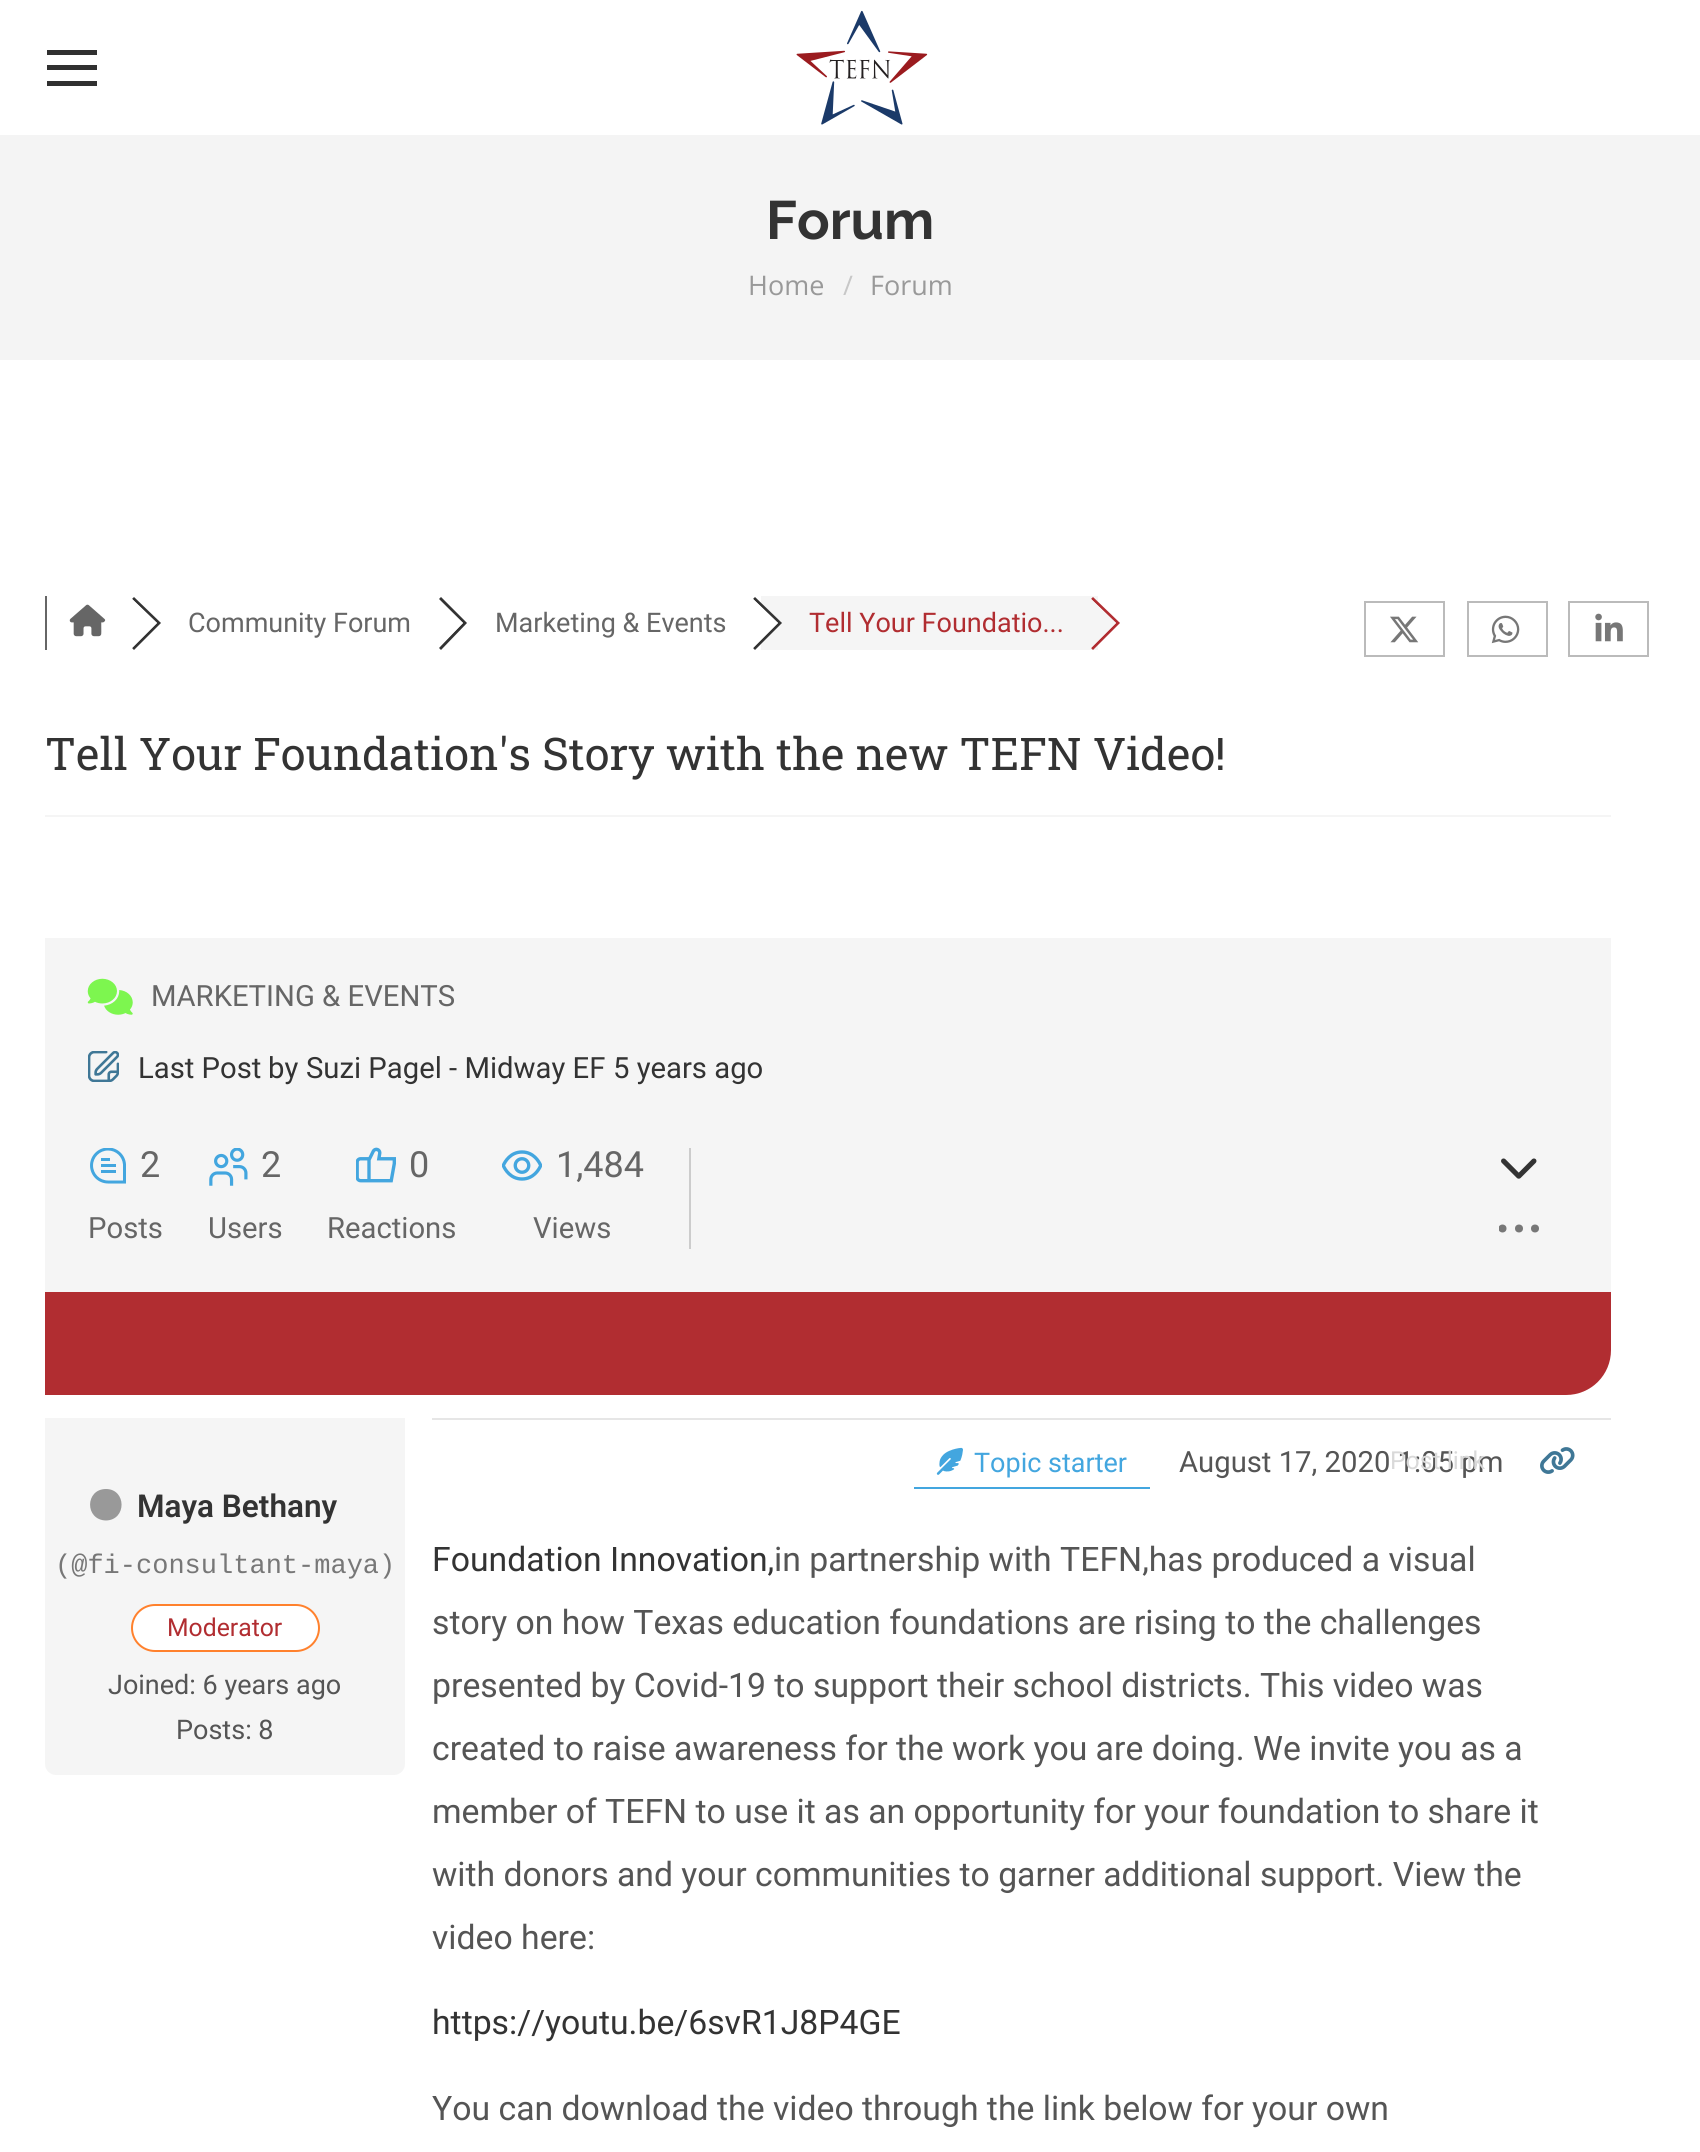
import math
import cairo

surface = cairo.ImageSurface(cairo.FORMAT_RGB24, 1700, 2152)
ctx = cairo.Context(surface)
options = cairo.FontOptions()
options.set_hint_metrics(cairo.HINT_METRICS_OFF)
options.set_hint_style(cairo.HINT_STYLE_NONE)
ctx.set_font_options(options)
ctx.set_miter_limit(4)


def set_color(code):
    ctx.set_source_rgb(*(v / 255 for v in bytes.fromhex(code[-6:])))


def draw_text(x, y, s, family, size, color, bold=False, italic=False):
    ctx.select_font_face(family, cairo.FONT_SLANT_ITALIC if italic else cairo.FONT_SLANT_NORMAL, cairo.FONT_WEIGHT_BOLD if bold else cairo.FONT_WEIGHT_NORMAL)
    ctx.set_font_size(size)
    set_color(color)
    ctx.move_to(x, y)
    ctx.show_text(s)


def fill_rect(x, y, w, h, color):
    set_color(color)
    ctx.rectangle(x, y, w, h)
    ctx.fill()


def rounded_rect(x, y, w, h, r):
    ctx.new_sub_path()
    for i, (u, v) in enumerate([(x + w - r, y + h - r), (x + r, y + h - r), (x + r, y + r), (x + w - r, y + r)]):
        ctx.arc(u, v, r, i * math.pi / 2, (i + 1) * math.pi / 2)
    ctx.close_path()


def draw_image(path, x, y, w, h):
    ctx.save()
    ctx.set_source_surface(cairo.ImageSurface.create_from_png(path), x, y)
    ctx.rectangle(x, y, w, h)
    ctx.fill()
    ctx.restore()


set_color("#ffffff")
ctx.paint()
fill_rect(47, 50, 50, 5, "#303030")
fill_rect(47, 65, 50, 5, "#303030")
fill_rect(47, 81, 50, 5, "#303030")
draw_image("assets/img1.png", 796, 10, 132, 115)
fill_rect(0, 135, 1700, 225, "#f4f4f4")
draw_text(766, 239, "Forum", "Raleway", 54, "#333333", bold=True)
draw_text(748, 295, "Home", "Open Sans", 27, "#999999")
draw_text(843, 295, "/", "Open Sans", 27, "#c7c7c7")
draw_text(870, 295, "Forum", "Open Sans", 27, "#999999")
fill_rect(45, 596, 2, 54, "#666666")
draw_image("assets/img2.png", 69, 604, 37, 33)
set_color("#333333")
ctx.new_path()
ctx.move_to(134, 597)
ctx.line_to(132, 599)
ctx.line_to(157, 623)
ctx.line_to(132, 648)
ctx.line_to(134, 650)
ctx.line_to(161, 623)
ctx.close_path()
ctx.fill()
set_color("#ffffff")
ctx.new_path()
ctx.move_to(130, 597)
ctx.line_to(157, 623)
ctx.line_to(130, 650)
ctx.line_to(103, 623)
ctx.close_path()
ctx.fill()
draw_text(188, 632, "Community Forum", "Roboto", 27, "#666666")
set_color("#333333")
ctx.new_path()
ctx.move_to(441, 597)
ctx.line_to(439, 599)
ctx.line_to(463, 623)
ctx.line_to(439, 648)
ctx.line_to(441, 650)
ctx.line_to(467, 623)
ctx.close_path()
ctx.fill()
set_color("#ffffff")
ctx.new_path()
ctx.move_to(436, 597)
ctx.line_to(463, 623)
ctx.line_to(436, 650)
ctx.line_to(409, 623)
ctx.close_path()
ctx.fill()
draw_text(495, 632, "Marketing & Events", "Roboto", 27, "#666666")
fill_rect(761, 596, 337, 54, "#f5f5f5")
set_color("#333333")
ctx.new_path()
ctx.move_to(755, 597)
ctx.line_to(753, 599)
ctx.line_to(778, 623)
ctx.line_to(753, 648)
ctx.line_to(755, 650)
ctx.line_to(782, 623)
ctx.close_path()
ctx.fill()
set_color("#ffffff")
ctx.new_path()
ctx.move_to(751, 597)
ctx.line_to(778, 623)
ctx.line_to(751, 650)
ctx.line_to(724, 623)
ctx.close_path()
ctx.fill()
draw_text(809, 632, "Tell Your Foundatio...", "Roboto", 27, "#b12d31")
ctx.new_path()
ctx.move_to(1093, 597)
ctx.line_to(1091, 599)
ctx.line_to(1116, 623)
ctx.line_to(1091, 648)
ctx.line_to(1093, 650)
ctx.line_to(1120, 623)
ctx.close_path()
ctx.fill()
set_color("#f5f5f5")
ctx.new_path()
ctx.move_to(1089, 597)
ctx.line_to(1116, 623)
ctx.line_to(1089, 650)
ctx.line_to(1062, 623)
ctx.close_path()
ctx.fill()
ctx.rectangle(1365, 602, 79, 54)
set_color("#bbbbbb")
ctx.stroke()
draw_image("assets/img3.png", 1390, 616, 29, 27)
ctx.rectangle(1468, 602, 79, 54)
ctx.stroke()
draw_image("assets/img4.png", 1491, 615, 29, 29)
ctx.rectangle(1569, 602, 79, 54)
ctx.stroke()
draw_image("assets/img5.png", 1595, 613, 28, 29)
draw_text(45, 770, "Tell Your Foundation's Story with the new TEFN Video!", "Roboto Slab", 45, "#333333")
fill_rect(45, 815, 1566, 2, "#f5f5f5")
set_color("#b12d31")
ctx.new_path()
ctx.move_to(45, 938)
ctx.line_to(1611, 938)
ctx.line_to(1611, 1350)
ctx.curve_to(1611, 1375, 1591, 1395, 1566, 1395)
ctx.line_to(45, 1395)
ctx.close_path()
ctx.fill()
fill_rect(45, 938, 1566, 354, "#f5f5f5")
draw_image("assets/img6.png", 87, 978, 46, 37)
draw_text(151, 1006, "MARKETING & EVENTS", "Roboto", 29.25, "#666666")
draw_image("assets/img7.png", 88, 1051, 31, 31)
draw_text(138, 1078, "Last Post", "Roboto", 29.25, "#333333")
draw_text(268, 1078, "by", "Roboto", 29.25, "#333333")
draw_text(306, 1078, "Suzi Pagel - Midway EF", "Roboto", 29.25, "#333333")
draw_text(613, 1078, "5 years ago", "Roboto", 29.25, "#333333")
draw_image("assets/img8.png", 90, 1148, 36, 36)
draw_text(140, 1177, "2", "Roboto", 36, "#666666")
draw_text(88, 1238, "Posts", "Roboto", 29.25, "#666666")
draw_image("assets/img9.png", 209, 1148, 39, 38)
draw_text(261, 1177, "2", "Roboto", 36, "#666666")
draw_text(208, 1238, "Users", "Roboto", 29.25, "#666666")
draw_image("assets/img10.png", 356, 1147, 40, 36)
draw_text(409, 1177, "0", "Roboto", 36, "#666666")
draw_text(327, 1238, "Reactions", "Roboto", 29.25, "#666666")
draw_image("assets/img11.png", 502, 1150, 40, 31)
draw_text(556, 1177, "1,484", "Roboto", 36, "#666666")
draw_text(533, 1238, "Views", "Roboto", 29.25, "#666666")
fill_rect(689, 1148, 2, 101, "#cccccc")
draw_image("assets/img12.png", 1501, 1158, 36, 21)
ctx.save()
ctx.rectangle(1499, 1208, 40, 41)
ctx.clip()
set_color("#777777")
ctx.arc(1502.5, 1228.5, 4, 0, 2 * math.pi)
ctx.fill()
ctx.restore()
set_color("#777777")
ctx.arc(1519, 1228.5, 4, 0, 2 * math.pi)
ctx.fill()
ctx.arc(1535, 1228.5, 4, 0, 2 * math.pi)
ctx.fill()
set_color("#f5f5f5")
ctx.new_path()
ctx.move_to(45, 1418)
ctx.line_to(405, 1418)
ctx.line_to(405, 1764)
ctx.curve_to(405, 1770, 400, 1775, 394, 1775)
ctx.line_to(56, 1775)
ctx.curve_to(50, 1775, 45, 1770, 45, 1764)
ctx.close_path()
ctx.fill()
set_color("#999999")
ctx.new_path()
ctx.move_to(106, 1520.5)
ctx.curve_to(127, 1520, 126.5, 1489, 106, 1489)
ctx.curve_to(85, 1489, 84.5, 1520, 106, 1520.5)
ctx.close_path()
ctx.fill()
draw_text(137, 1517, "Maya Bethany", "Roboto SemiBold", 31.5, "#333333")
draw_text(55, 1573, "(@fi-consultant-maya)", "Liberation Mono", 27, "#777777")
set_color("#ffffff")
rounded_rect(132, 1605, 187, 46, 23)
ctx.fill_preserve()
set_color("#ff812d")
ctx.stroke()
draw_text(167, 1636, "Moderator", "Roboto", 24.75, "#b12d31")
draw_text(108, 1694, "Joined: 6 years ago", "Roboto", 27, "#555555")
draw_text(176, 1739, "Posts: 8", "Roboto", 27, "#555555")
fill_rect(432, 1418, 1179, 2, "#e6e6e6")
draw_text(1179, 1472, "August 17, 2020 1:05 pm", "Roboto", 29.25, "#555555")
fill_rect(914, 1487, 236, 2, "#43a6df")
draw_image("assets/img13.png", 936, 1447, 27, 28)
draw_text(974, 1472, "Topic starter", "Roboto", 27, "#43a6df")
draw_text(1390, 1469, "Post link", "Roboto", 24.75, "#d9d9d9")
draw_image("assets/img14.png", 1540, 1447, 35, 27)
draw_text(432, 1571, "Foundation Innovation,", "Roboto", 33.75, "#333333")
draw_text(774, 1571, "in partnership with TEFN,has produced a visual", "Roboto", 33.75, "#555555")
draw_text(432, 1634, "story on how Texas education foundations are rising to the challenges", "Roboto", 33.75, "#555555")
draw_text(432, 1697, "presented by Covid-19 to support their school districts. This video was", "Roboto", 33.75, "#555555")
draw_text(432, 1760, "created to raise awareness for the work you are doing. We invite you as a", "Roboto", 33.75, "#555555")
draw_text(432, 1823, "member of TEFN to use it as an opportunity for your foundation to share it", "Roboto", 33.75, "#555555")
draw_text(432, 1886, "with donors and your communities to garner additional support. View the", "Roboto", 33.75, "#555555")
draw_text(432, 1949, "video here:", "Roboto", 33.75, "#555555")
draw_text(432, 2034, "https://youtu.be/6svR1J8P4GE", "Roboto", 33.75, "#333333")
draw_text(432, 2120, "You can download the video through the link below for your own", "Roboto", 33.75, "#555555")
surface.write_to_png("output.png")
